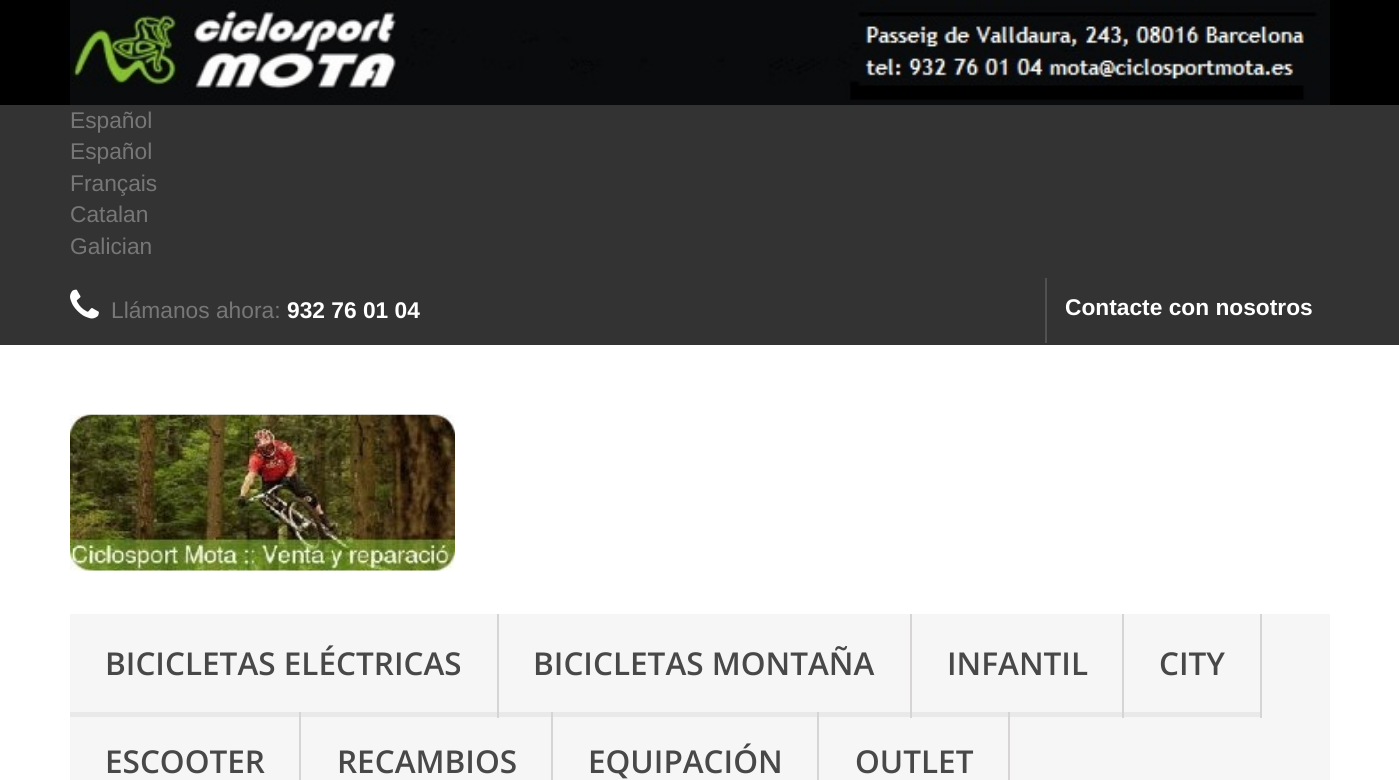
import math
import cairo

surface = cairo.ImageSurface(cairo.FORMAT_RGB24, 1399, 780)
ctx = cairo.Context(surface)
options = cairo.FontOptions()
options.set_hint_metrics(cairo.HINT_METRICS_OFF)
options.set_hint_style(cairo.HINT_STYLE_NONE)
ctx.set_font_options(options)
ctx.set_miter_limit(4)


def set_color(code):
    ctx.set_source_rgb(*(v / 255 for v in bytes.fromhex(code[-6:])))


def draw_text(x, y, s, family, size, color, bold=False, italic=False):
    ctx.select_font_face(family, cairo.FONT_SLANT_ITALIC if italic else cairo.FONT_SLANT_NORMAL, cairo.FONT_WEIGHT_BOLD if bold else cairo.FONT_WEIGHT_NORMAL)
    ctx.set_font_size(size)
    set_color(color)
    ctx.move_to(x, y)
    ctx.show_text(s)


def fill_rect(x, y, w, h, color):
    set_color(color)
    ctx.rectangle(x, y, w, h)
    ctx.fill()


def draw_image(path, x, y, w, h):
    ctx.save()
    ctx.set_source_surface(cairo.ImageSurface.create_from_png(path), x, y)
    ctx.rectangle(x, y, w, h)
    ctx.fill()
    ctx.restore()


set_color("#ffffff")
ctx.paint()
fill_rect(0, 0, 1399, 105, "#000000")
draw_image("assets/img1.png", 70, 0, 1260, 105)
fill_rect(0, 105, 1399, 240, "#333333")
draw_text(70, 128, "Español", "Liberation Sans", 22.75, "#777777")
draw_text(70, 159, "Español", "Liberation Sans", 22.75, "#777777")
draw_text(70, 191, "Français", "Liberation Sans", 22.75, "#777777")
draw_text(70, 222, "Catalan", "Liberation Sans", 22.75, "#777777")
draw_text(70, 254, "Galician", "Liberation Sans", 22.75, "#777777")
draw_image("assets/img2.png", 70, 289, 29, 30)
draw_text(111, 318, "Llámanos ahora:", "Liberation Sans", 22.75, "#777777")
draw_text(287, 318, "932 76 01 04", "Liberation Sans", 22.75, "#ffffff", bold=True)
fill_rect(1045, 278, 2, 65, "#515151")
draw_text(1065, 315, "Contacte con nosotros", "Liberation Sans", 22.75, "#ffffff", bold=True)
draw_image("assets/img3.png", 70, 414, 385, 157)
fill_rect(70, 614, 1260, 166, "#f6f6f6")
fill_rect(497, 614, 2, 104, "#d6d4d4")
fill_rect(70, 712, 427, 5, "#e9e9e9")
draw_text(105, 675, "BICICLETAS ELÉCTRICAS", "Open Sans SemiBold", 31.5, "#484848")
fill_rect(910, 614, 2, 104, "#d6d4d4")
fill_rect(499, 712, 411, 5, "#e9e9e9")
draw_text(533, 675, "BICICLETAS MONTAÑA", "Open Sans SemiBold", 31.5, "#484848")
fill_rect(1122, 614, 2, 104, "#d6d4d4")
fill_rect(912, 712, 210, 5, "#e9e9e9")
draw_text(947, 675, "INFANTIL", "Open Sans SemiBold", 31.5, "#484848")
fill_rect(1260, 614, 2, 104, "#d6d4d4")
fill_rect(1124, 712, 136, 5, "#e9e9e9")
draw_text(1159, 675, "CITY", "Open Sans SemiBold", 31.5, "#484848")
fill_rect(299, 712, 2, 68, "#d6d4d4")
draw_text(105, 773, "ESCOOTER", "Open Sans SemiBold", 31.5, "#484848")
fill_rect(551, 712, 2, 68, "#d6d4d4")
draw_text(337, 773, "RECAMBIOS", "Open Sans SemiBold", 31.5, "#484848")
fill_rect(817, 712, 2, 68, "#d6d4d4")
draw_text(588, 773, "EQUIPACIÓN", "Open Sans SemiBold", 31.5, "#484848")
fill_rect(1008, 712, 2, 68, "#d6d4d4")
draw_text(855, 773, "OUTLET", "Open Sans SemiBold", 31.5, "#484848")
surface.write_to_png("output.png")
